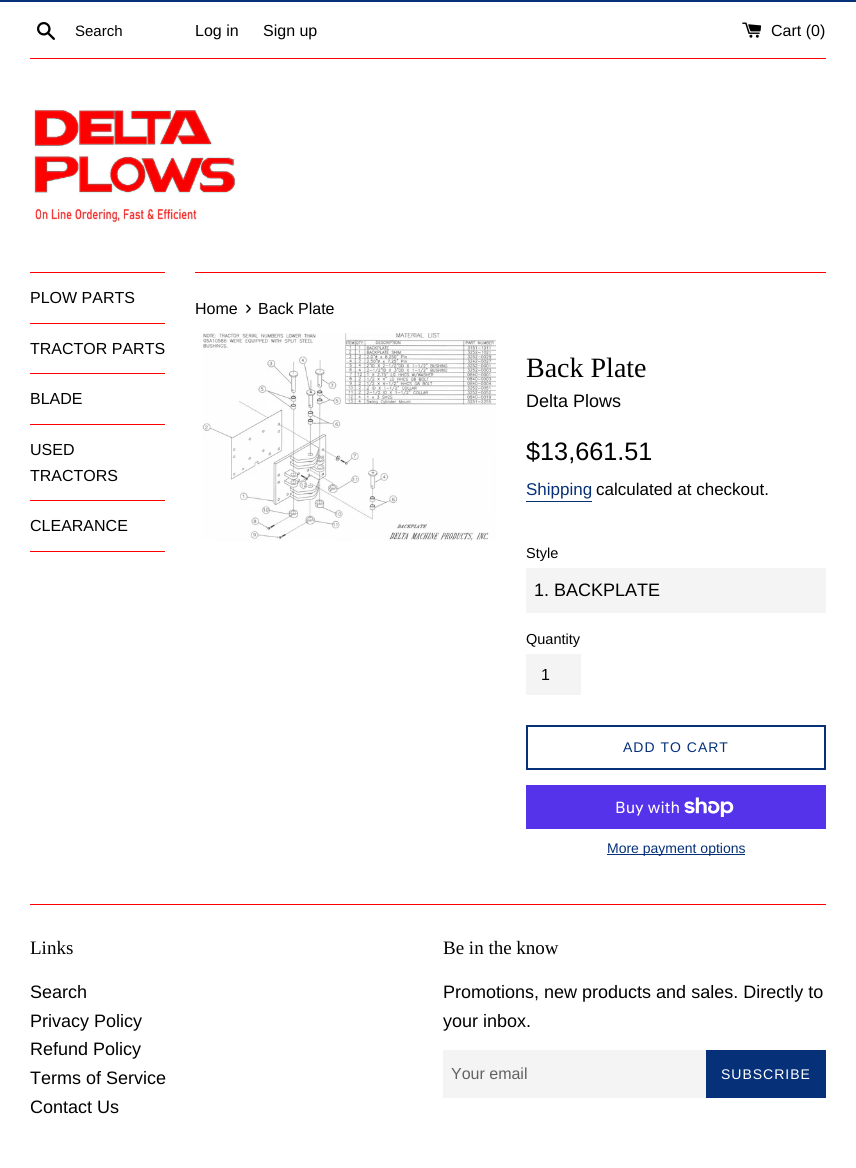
import math
import cairo

surface = cairo.ImageSurface(cairo.FORMAT_RGB24, 856, 1168)
ctx = cairo.Context(surface)
options = cairo.FontOptions()
options.set_hint_metrics(cairo.HINT_METRICS_OFF)
options.set_hint_style(cairo.HINT_STYLE_NONE)
ctx.set_font_options(options)
ctx.set_miter_limit(4)


def set_color(code):
    ctx.set_source_rgb(*(v / 255 for v in bytes.fromhex(code[-6:])))


def draw_text(x, y, s, family, size, color, bold=False, italic=False):
    ctx.select_font_face(family, cairo.FONT_SLANT_ITALIC if italic else cairo.FONT_SLANT_NORMAL, cairo.FONT_WEIGHT_BOLD if bold else cairo.FONT_WEIGHT_NORMAL)
    ctx.set_font_size(size)
    set_color(color)
    ctx.move_to(x, y)
    ctx.show_text(s)


def draw_spaced(x, y, s, letter, word):
    ctx.move_to(x, y)
    for ch in s:
        ctx.show_text(ch)
        ctx.rel_move_to(letter + word * (ch == ' '), 0)


def fill_rect(x, y, w, h, color):
    set_color(color)
    ctx.rectangle(x, y, w, h)
    ctx.fill()


def draw_image(path, x, y, w, h):
    ctx.save()
    ctx.set_source_surface(cairo.ImageSurface.create_from_png(path), x, y)
    ctx.rectangle(x, y, w, h)
    ctx.fill()
    ctx.restore()


set_color("#ffffff")
ctx.paint()
fill_rect(0, 0, 856, 2, "#063179")
draw_image("assets/img1.png", 37, 22, 18, 18)
draw_text(75, 36, "Search", "Liberation Sans", 15, "#000000")
draw_text(195, 36, "Log in", "Liberation Sans", 16, "#000000")
draw_text(263, 36, "Sign up", "Liberation Sans", 16, "#000000")
draw_image("assets/img2.png", 742, 22, 20, 16)
draw_text(771, 36, "Cart (0)", "Liberation Sans", 16, "#000000")
fill_rect(30, 58, 796, 1, "#ff0000")
draw_image("assets/img3.png", 34, 108, 202, 116)
fill_rect(30, 272, 135, 1, "#ff0000")
fill_rect(30, 323, 135, 1, "#ff0000")
draw_text(30, 303, "PLOW PARTS", "Liberation Sans", 16, "#000000")
fill_rect(30, 373, 135, 1, "#ff0000")
draw_text(30, 354, "TRACTOR PARTS", "Liberation Sans", 16, "#000000")
fill_rect(30, 424, 135, 1, "#ff0000")
draw_text(30, 404, "BLADE", "Liberation Sans", 16, "#000000")
fill_rect(30, 500, 135, 1, "#ff0000")
draw_text(30, 455, "USED", "Liberation Sans", 16, "#000000")
draw_text(30, 481, "TRACTORS", "Liberation Sans", 16, "#000000")
fill_rect(30, 551, 135, 1, "#ff0000")
draw_text(30, 531, "CLEARANCE", "Liberation Sans", 16, "#000000")
fill_rect(195, 272, 631, 1, "#ff0000")
draw_text(195, 314, "Home", "Liberation Sans", 16, "#000000")
draw_text(245, 314, "›", "Liberation Sans", 20, "#000000")
draw_text(258, 314, "Back Plate", "Liberation Sans", 16, "#000000")
draw_image("assets/img4.png", 202, 333, 294, 208)
draw_text(526, 377, "Back Plate", "Liberation Serif", 28, "#000000")
draw_text(526, 407, "Delta Plows", "Liberation Sans", 18, "#000000")
draw_text(526, 460, "$13,661.51", "Liberation Sans", 25.25, "#000000")
draw_text(526, 495, "Shipping", "Liberation Sans", 17, "#063179")
fill_rect(526, 501, 66, 1, "#063179")
draw_text(596, 495, "calculated at checkout.", "Liberation Sans", 17, "#000000")
draw_text(526, 558, "Style", "Liberation Sans", 14.5, "#000000")
fill_rect(526, 568, 300, 45, "#f4f4f4")
draw_text(534, 596, "1. BACKPLATE", "Liberation Sans", 18, "#000000")
draw_text(526, 644, "Quantity", "Liberation Sans", 14.5, "#000000")
fill_rect(526, 654, 55, 41, "#f4f4f4")
draw_text(541, 680, "1", "Liberation Sans", 16, "#000000")
ctx.rectangle(527, 726, 298, 43)
set_color("#063179")
ctx.stroke()
ctx.set_font_size(14)
draw_spaced(623, 752, "ADD TO CART", 1, 0)
fill_rect(526, 785, 300, 44, "#5433eb")
draw_text(615, 813, "Buy with", "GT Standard", 16, "#ffffff")
draw_image("assets/img5.png", 684, 797, 50, 20)
fill_rect(607, 854, 138, 1, "#063179")
draw_text(607, 853, "More payment options", "Liberation Sans", 14, "#063179")
fill_rect(30, 904, 796, 1, "#ff0000")
draw_text(30, 954, "Links", "Liberation Serif", 19, "#000000")
draw_text(30, 998, "Search", "Liberation Sans", 18, "#000000")
draw_text(30, 1027, "Privacy Policy", "Liberation Sans", 18, "#000000")
draw_text(30, 1055, "Refund Policy", "Liberation Sans", 18, "#000000")
draw_text(30, 1084, "Terms of Service", "Liberation Sans", 18, "#000000")
draw_text(30, 1113, "Contact Us", "Liberation Sans", 18, "#000000")
draw_text(443, 954, "Be in the know", "Liberation Serif", 19, "#000000")
draw_text(443, 998, "Promotions, new products and sales. Directly to", "Liberation Sans", 18, "#000000")
draw_text(443, 1027, "your inbox.", "Liberation Sans", 18, "#000000")
fill_rect(443, 1050, 263, 48, "#f4f4f4")
draw_text(451, 1079, "Your email", "Liberation Sans", 16, "#626262")
fill_rect(706, 1050, 120, 48, "#063179")
ctx.set_font_size(14)
set_color("#ffffff")
draw_spaced(721, 1079, "SUBSCRIBE", 1, 0)
surface.write_to_png("output.png")
